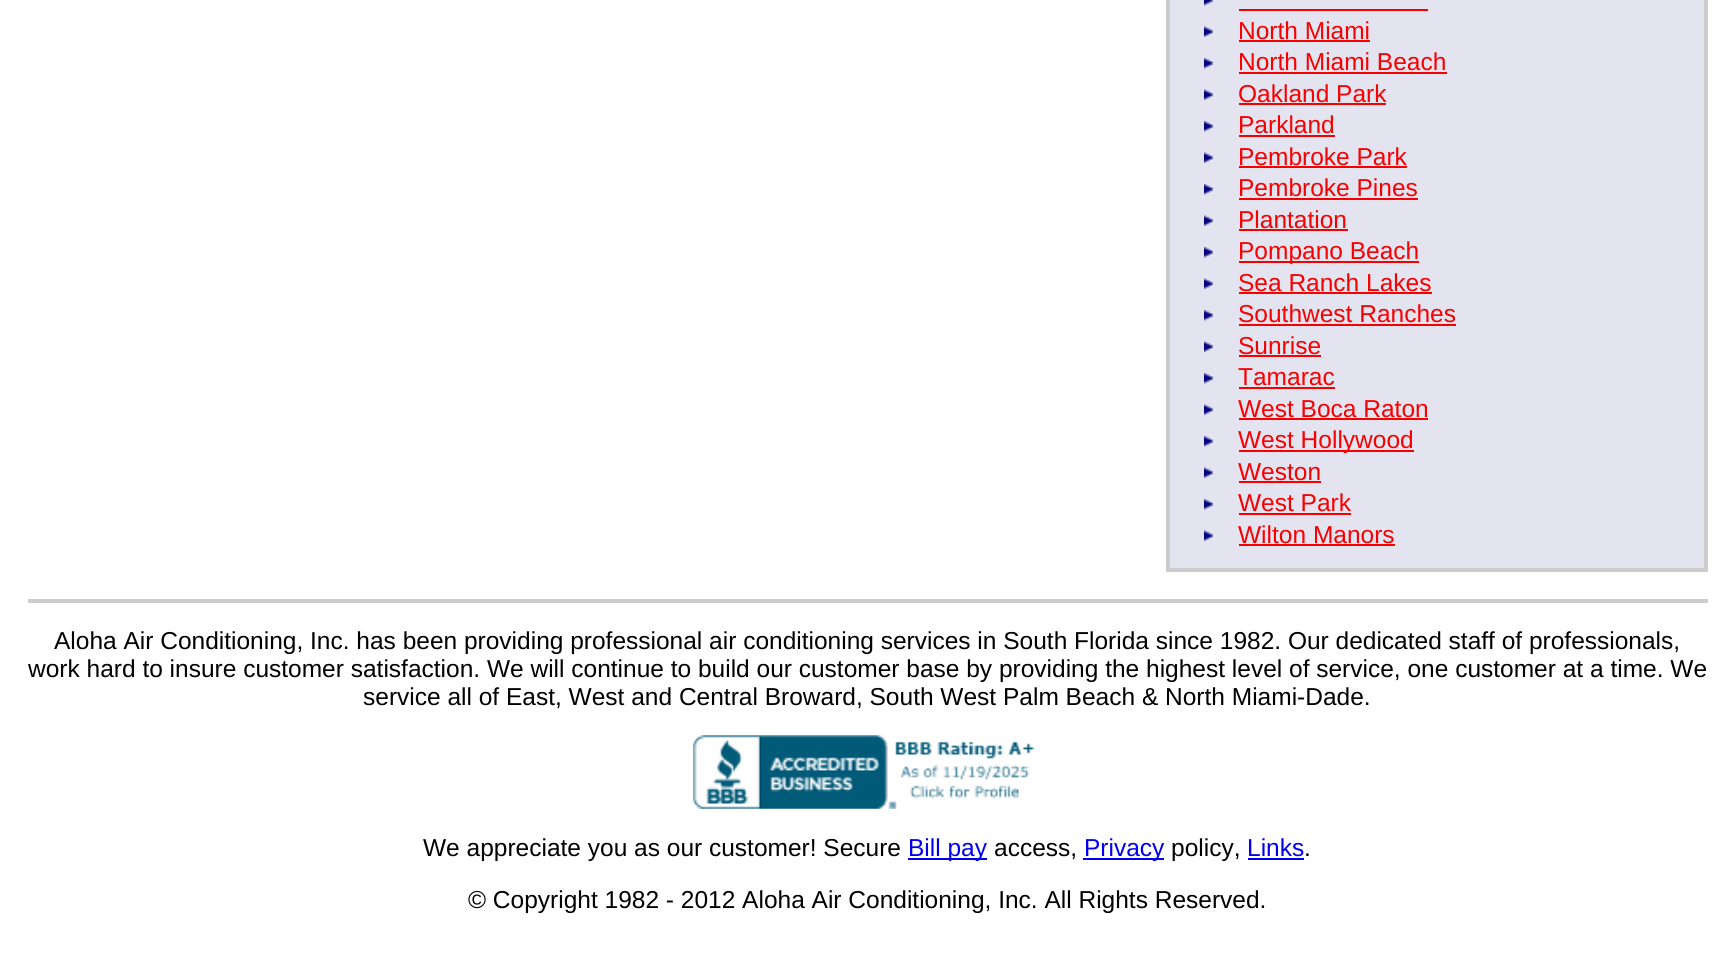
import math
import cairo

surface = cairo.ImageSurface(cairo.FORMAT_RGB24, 1734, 964)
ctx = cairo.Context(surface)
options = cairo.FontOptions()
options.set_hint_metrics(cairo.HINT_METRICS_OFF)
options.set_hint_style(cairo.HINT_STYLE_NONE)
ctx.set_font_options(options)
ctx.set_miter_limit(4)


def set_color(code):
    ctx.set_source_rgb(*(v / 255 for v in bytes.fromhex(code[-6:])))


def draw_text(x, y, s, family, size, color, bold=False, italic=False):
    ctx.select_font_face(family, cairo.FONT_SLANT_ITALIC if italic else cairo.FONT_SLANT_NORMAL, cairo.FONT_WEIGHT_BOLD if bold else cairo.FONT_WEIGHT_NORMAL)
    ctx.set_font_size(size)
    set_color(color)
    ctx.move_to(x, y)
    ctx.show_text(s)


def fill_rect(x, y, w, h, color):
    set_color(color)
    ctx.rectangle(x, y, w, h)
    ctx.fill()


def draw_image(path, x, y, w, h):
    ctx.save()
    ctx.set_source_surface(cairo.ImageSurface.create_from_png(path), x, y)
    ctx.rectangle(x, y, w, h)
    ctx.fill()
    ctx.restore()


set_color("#ffffff")
ctx.paint()
set_color("#e4e4f1")
ctx.rectangle(1168, -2, 538, 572)
ctx.fill_preserve()
set_color("#cccccc")
ctx.set_line_width(4)
ctx.stroke()
draw_image("assets/img1.png", 1204, 0, 9, 6)
fill_rect(1239, 9, 189, 2, "#f80000")
draw_image("assets/img2.png", 1204, 26, 9, 11)
draw_text(1238, 39, "North Miami", "Liberation Sans", 24.5, "#f80000")
fill_rect(1239, 40, 131, 2, "#f80000")
draw_image("assets/img3.png", 1204, 58, 9, 11)
draw_text(1238, 70, "North Miami Beach", "Liberation Sans", 24.5, "#f80000")
fill_rect(1239, 72, 208, 2, "#f80000")
draw_image("assets/img2.png", 1204, 89, 9, 11)
draw_text(1238, 102, "Oakland Park", "Liberation Sans", 24.5, "#f80000")
fill_rect(1239, 103, 147, 2, "#f80000")
draw_image("assets/img3.png", 1204, 121, 9, 11)
draw_text(1238, 133, "Parkland", "Liberation Sans", 24.5, "#f80000")
fill_rect(1239, 135, 96, 2, "#f80000")
draw_image("assets/img2.png", 1204, 152, 9, 11)
draw_text(1238, 165, "Pembroke Park", "Liberation Sans", 24.5, "#f80000")
fill_rect(1239, 166, 168, 2, "#f80000")
draw_image("assets/img3.png", 1204, 184, 9, 11)
draw_text(1238, 196, "Pembroke Pines", "Liberation Sans", 24.5, "#f80000")
fill_rect(1239, 198, 179, 2, "#f80000")
draw_image("assets/img2.png", 1204, 215, 9, 11)
draw_text(1238, 228, "Plantation", "Liberation Sans", 24.5, "#f80000")
fill_rect(1239, 229, 109, 2, "#f80000")
draw_image("assets/img3.png", 1204, 247, 9, 11)
fill_rect(1239, 261, 180, 2, "#f80000")
draw_text(1238, 259, "Pompano Beach", "Liberation Sans", 24.5, "#f80000")
draw_image("assets/img2.png", 1204, 278, 9, 11)
draw_text(1238, 291, "Sea Ranch Lakes", "Liberation Sans", 24.5, "#f80000")
fill_rect(1239, 292, 193, 2, "#f80000")
draw_image("assets/img3.png", 1204, 310, 9, 11)
draw_text(1238, 322, "Southwest Ranches", "Liberation Sans", 24.5, "#f80000")
fill_rect(1239, 324, 217, 2, "#f80000")
draw_image("assets/img2.png", 1204, 341, 9, 11)
draw_text(1238, 354, "Sunrise", "Liberation Sans", 24.5, "#f80000")
fill_rect(1239, 355, 82, 2, "#f80000")
draw_image("assets/img3.png", 1204, 373, 9, 11)
draw_text(1238, 385, "Tamarac", "Liberation Sans", 24.5, "#f80000")
fill_rect(1239, 387, 96, 2, "#f80000")
draw_image("assets/img2.png", 1204, 404, 9, 11)
draw_text(1238, 417, "West Boca Raton", "Liberation Sans", 24.5, "#f80000")
fill_rect(1239, 418, 189, 2, "#f80000")
draw_image("assets/img3.png", 1204, 436, 9, 11)
fill_rect(1239, 450, 175, 2, "#f80000")
draw_text(1238, 448, "West Hollywood", "Liberation Sans", 24.5, "#f80000")
draw_image("assets/img2.png", 1204, 467, 9, 11)
draw_text(1238, 480, "Weston", "Liberation Sans", 24.5, "#f80000")
fill_rect(1239, 481, 82, 2, "#f80000")
draw_image("assets/img3.png", 1204, 499, 9, 11)
draw_text(1238, 511, "West Park", "Liberation Sans", 24.5, "#f80000")
fill_rect(1239, 513, 112, 2, "#f80000")
draw_image("assets/img2.png", 1204, 530, 9, 11)
draw_text(1238, 543, "Wilton Manors", "Liberation Sans", 24.5, "#f80000")
fill_rect(1239, 544, 156, 2, "#f80000")
fill_rect(28, 599, 1680, 4, "#cccccc")
draw_text(54, 649, "Aloha Air Conditioning, Inc. has been providing professional air conditioning services in South Florida since 1982. Our dedicated staff of professionals,", "Liberation Sans", 24.5, "#000000")
draw_text(28, 677, "work hard to insure customer satisfaction. We will continue to build our customer base by providing the highest level of service, one customer at a time. We", "Liberation Sans", 24.5, "#000000")
draw_text(363, 705, "service all of East, West and Central Broward, South West Palm Beach & North Miami-Dade.", "Liberation Sans", 24.5, "#000000")
draw_image("assets/img4.png", 693, 735, 342, 74)
draw_text(423, 856, "We appreciate you as our customer! Secure", "Liberation Sans", 24.5, "#000000")
fill_rect(908, 858, 79, 2, "#0000ee")
draw_text(908, 856, "Bill pay", "Liberation Sans", 24.5, "#0000ee")
draw_text(994, 856, "access,", "Liberation Sans", 24.5, "#000000")
fill_rect(1083, 858, 81, 2, "#0000ee")
draw_text(1084, 856, "Privacy", "Liberation Sans", 24.5, "#0000ee")
draw_text(1171, 856, "policy,", "Liberation Sans", 24.5, "#000000")
draw_text(1247, 856, "Links", "Liberation Sans", 24.5, "#0000ee")
fill_rect(1248, 858, 56, 2, "#0000ee")
draw_text(1304, 856, ".", "Liberation Sans", 24.5, "#000000")
draw_text(468, 908, "© Copyright 1982 - 2012 Aloha Air Conditioning, Inc. All Rights Reserved.", "Liberation Sans", 24.5, "#000000")
surface.write_to_png("output.png")
